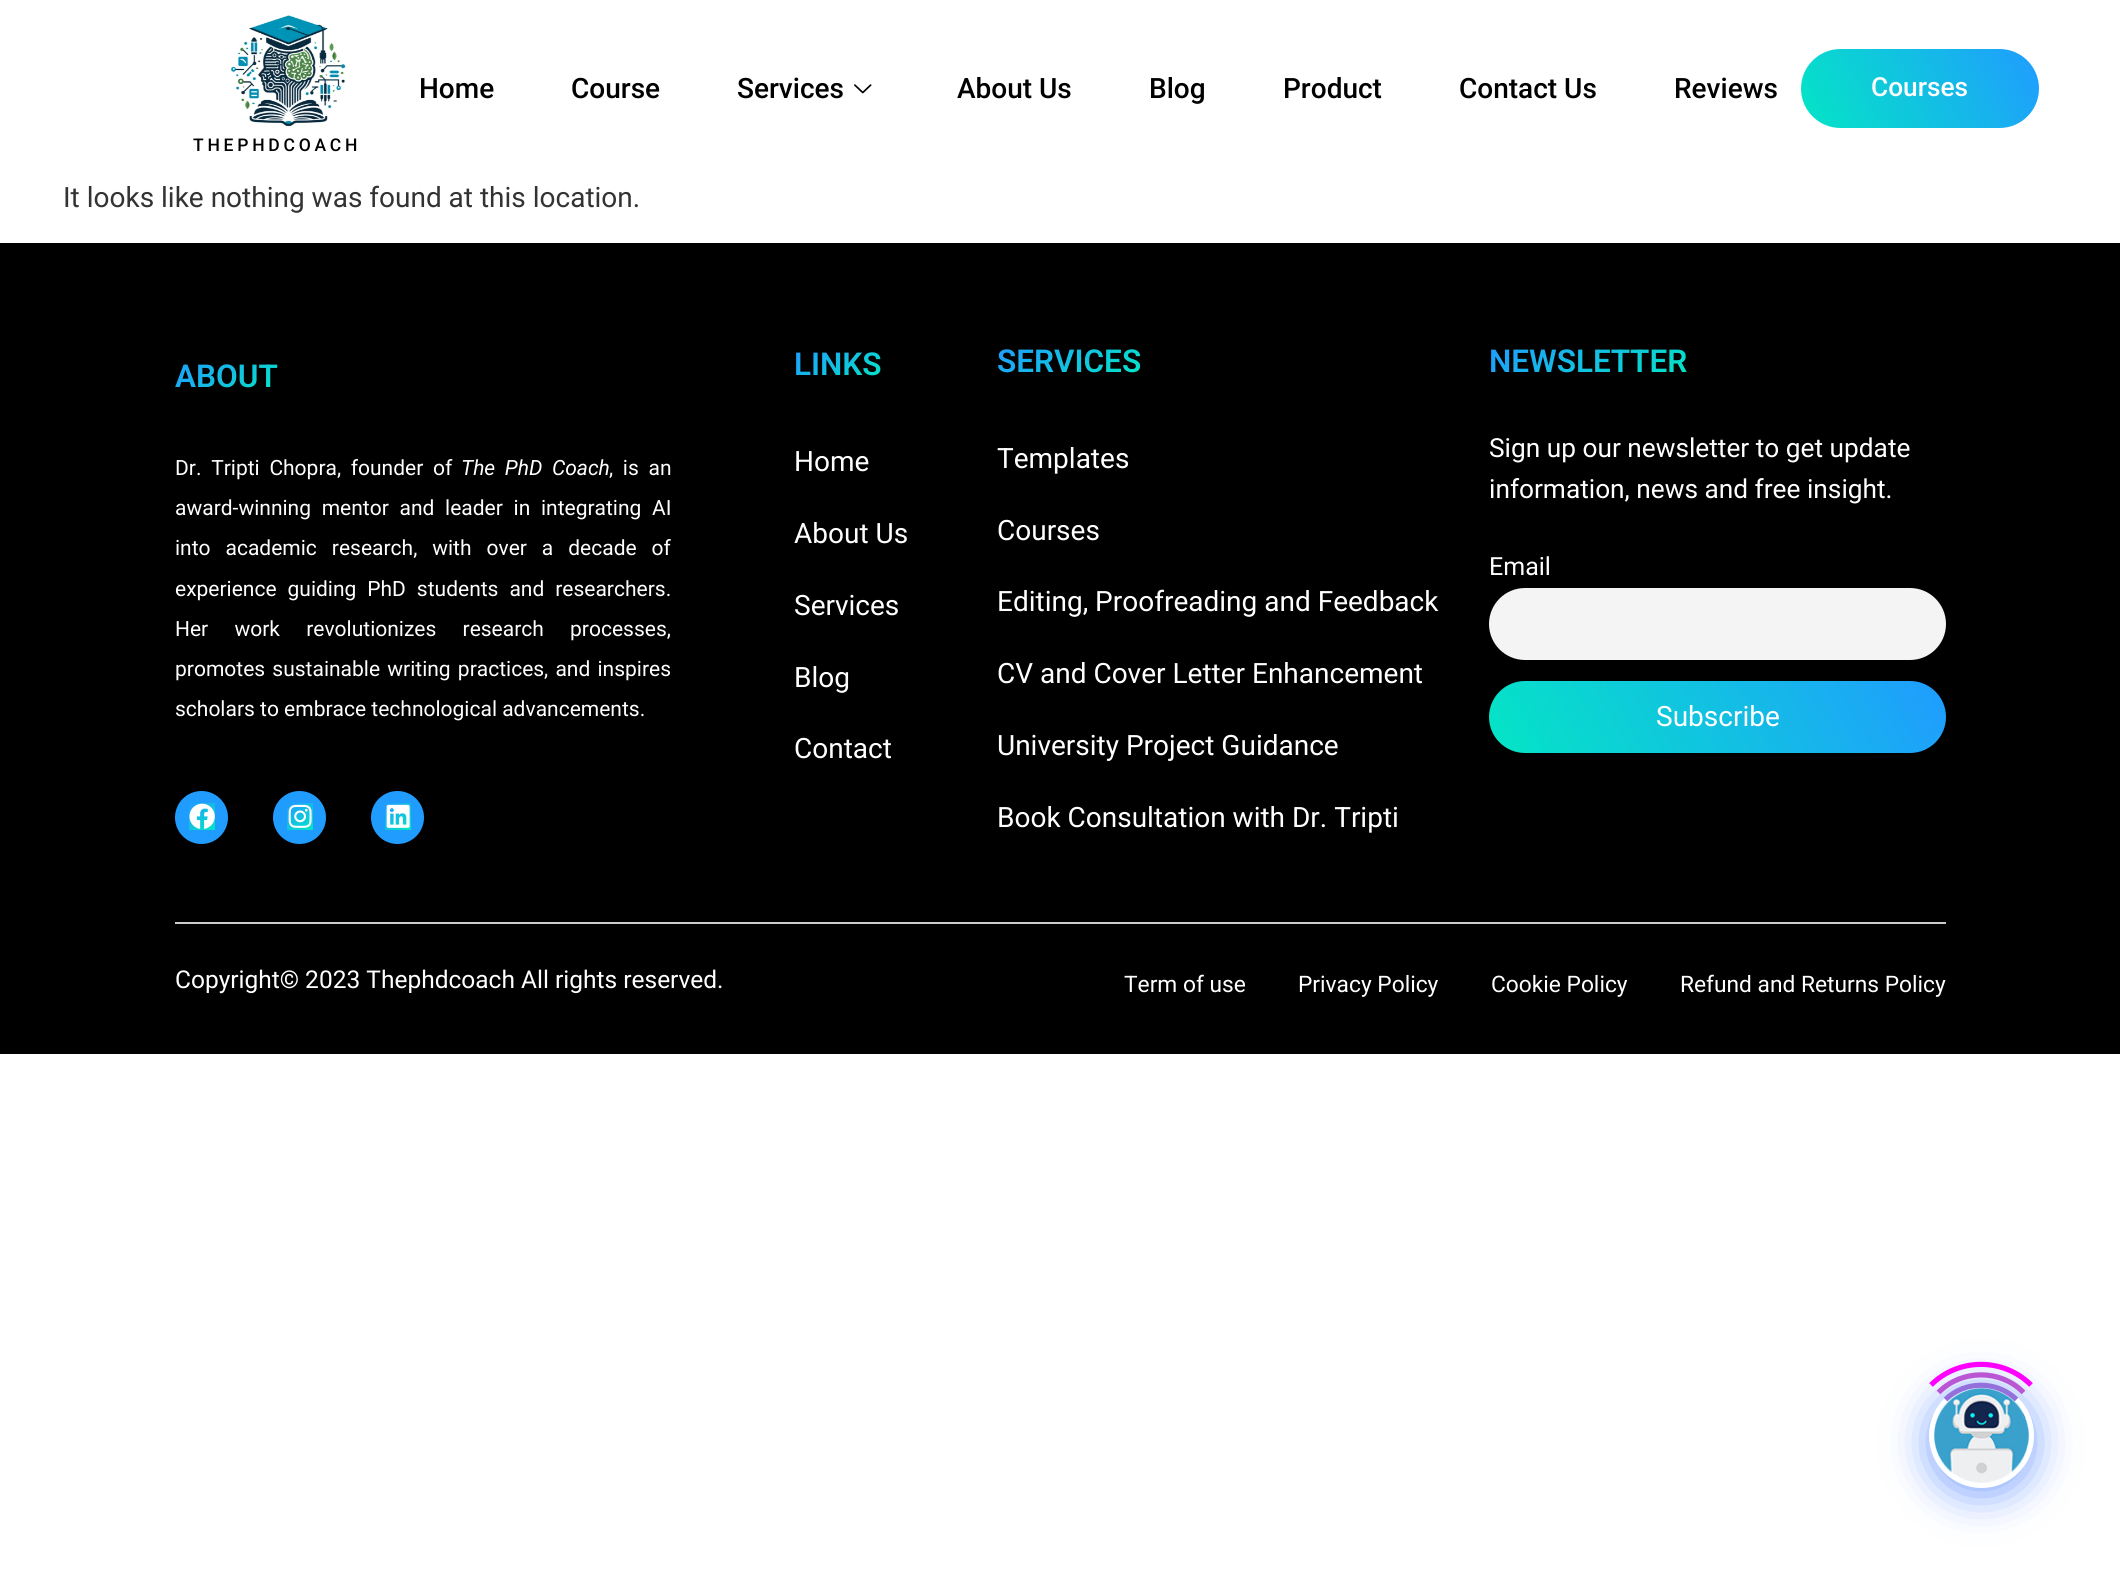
import math
import cairo

surface = cairo.ImageSurface(cairo.FORMAT_RGB24, 2120, 1575)
ctx = cairo.Context(surface)
options = cairo.FontOptions()
options.set_hint_metrics(cairo.HINT_METRICS_OFF)
options.set_hint_style(cairo.HINT_STYLE_NONE)
ctx.set_font_options(options)
ctx.set_miter_limit(4)


def set_color(code):
    ctx.set_source_rgb(*(v / 255 for v in bytes.fromhex(code[-6:])))


def draw_text(x, y, s, family, size, color, bold=False, italic=False):
    ctx.select_font_face(family, cairo.FONT_SLANT_ITALIC if italic else cairo.FONT_SLANT_NORMAL, cairo.FONT_WEIGHT_BOLD if bold else cairo.FONT_WEIGHT_NORMAL)
    ctx.set_font_size(size)
    set_color(color)
    ctx.move_to(x, y)
    ctx.show_text(s)


def draw_spaced(x, y, s, letter, word):
    ctx.move_to(x, y)
    for ch in s:
        ctx.show_text(ch)
        ctx.rel_move_to(letter + word * (ch == ' '), 0)


def fill_rect(x, y, w, h, color):
    set_color(color)
    ctx.rectangle(x, y, w, h)
    ctx.fill()


def rounded_rect(x, y, w, h, r):
    ctx.new_sub_path()
    for i, (u, v) in enumerate([(x + w - r, y + h - r), (x + r, y + h - r), (x + r, y + r), (x + w - r, y + r)]):
        ctx.arc(u, v, r, i * math.pi / 2, (i + 1) * math.pi / 2)
    ctx.close_path()


def draw_shadow(x, y, w, h, r, blur, alpha):
    ctx.push_group_with_content(cairo.CONTENT_ALPHA)
    ctx.set_operator(cairo.OPERATOR_SOURCE)
    for i in range(15, -16, -2):
        e = blur * i / 6
        if min(w, h) + 2 * e > 0:
            ctx.set_source_rgba(0, 0, 0, alpha * math.erfc((i - 1) / 8.5) / 2)
            rounded_rect(x - e, y - e, w + 2 * e, h + 2 * e, max(0, min(r + e + blur * .6, min(w, h) / 2 + e)))
            ctx.fill()
    ctx.mask(ctx.pop_group())


def draw_image(path, x, y, w, h):
    ctx.save()
    ctx.set_source_surface(cairo.ImageSurface.create_from_png(path), x, y)
    ctx.rectangle(x, y, w, h)
    ctx.fill()
    ctx.restore()


set_color("#ffffff")
ctx.paint()
draw_text(419, 98, "Home", "Roboto Medium", 28, "#000000")
draw_text(571, 98, "Course", "Roboto Medium", 28, "#000000")
draw_text(737, 98, "Services", "Roboto Medium", 28, "#000000")
draw_image("assets/img1.png", 854, 84, 18, 10)
draw_text(957, 98, "About Us", "Roboto Medium", 28, "#000000")
draw_text(1149, 98, "Blog", "Roboto Medium", 28, "#000000")
draw_text(1283, 98, "Product", "Roboto Medium", 28, "#000000")
draw_text(1459, 98, "Contact Us", "Roboto Medium", 28, "#000000")
draw_text(1674, 98, "Reviews", "Roboto Medium", 28, "#000000")
gradient = cairo.LinearGradient(2029, 30, 1811, 146)
gradient.add_color_stop_rgba(0, 0.125, 0.612, 1, 1)
gradient.add_color_stop_rgba(1, 0.016, 0.898, 0.773, 1)
ctx.set_source(gradient)
rounded_rect(1801, 49, 238, 79, 39.5)
ctx.fill()
draw_text(1871, 96, "Courses", "Roboto Medium", 26.25, "#ffffff")
draw_image("assets/img2.png", 230, 15, 116, 112)
ctx.set_font_size(17.5)
set_color("#000000")
draw_spaced(193, 151, "THEPHDCOACH", 3.75, 0)
draw_text(63, 207, "It looks like nothing was found at this location.", "Roboto", 28, "#333333")
fill_rect(0, 243, 2120, 811, "#000000")
ctx.select_font_face("Roboto SemiBold")
ctx.set_font_size(31.5)
gradient = cairo.LinearGradient(199, 342, 254, 412)
gradient.add_color_stop_rgba(0, 0.125, 0.612, 1, 1)
gradient.add_color_stop_rgba(1, 0.016, 0.898, 0.773, 1)
ctx.set_source(gradient)
ctx.move_to(175, 387)
ctx.show_text("ABOUT")
ctx.select_font_face("Roboto")
ctx.set_font_size(21)
set_color("#ffffff")
draw_spaced(175, 475, "Dr. Tripti Chopra, founder of", 0, 4.5)
ctx.select_font_face("Roboto", cairo.FONT_SLANT_ITALIC)
draw_spaced(461, 475, "The PhD Coach", 0, 4.5)
ctx.select_font_face("Roboto")
draw_spaced(609, 475, ", is an", 0, 4.5)
draw_spaced(175, 515, "award-winning mentor and leader in integrating AI", 0, 5.5)
draw_spaced(175, 555, "into academic research, with over a decade of", 0, 9.75)
draw_spaced(175, 596, "experience guiding PhD students and researchers.", 0, 5.75)
draw_spaced(175, 636, "Her work revolutionizes research processes,", 0, 21)
draw_spaced(175, 676, "promotes sustainable writing practices, and inspires", 0, 2)
draw_text(175, 716, "scholars to embrace technological advancements.", "Roboto", 21, "#ffffff")
set_color("#209cff")
ctx.new_path()
ctx.arc(201.5, 817.5, 26.5, 0, 2 * math.pi)
ctx.fill()
gradient = cairo.LinearGradient(191, 802, 213, 831)
gradient.add_color_stop_rgba(0, 0.125, 0.612, 1, 1)
gradient.add_color_stop_rgba(1, 0.016, 0.898, 0.773, 1)
ctx.set_source(gradient)
ctx.rectangle(189, 803, 26, 27)
ctx.fill()
draw_image("assets/img3.png", 189, 803, 26, 26)
set_color("#209cff")
ctx.arc(299.5, 817.5, 26.5, 0, 2 * math.pi)
ctx.fill()
gradient = cairo.LinearGradient(289, 802, 311, 831)
gradient.add_color_stop_rgba(0, 0.125, 0.612, 1, 1)
gradient.add_color_stop_rgba(1, 0.016, 0.898, 0.773, 1)
ctx.set_source(gradient)
ctx.rectangle(287, 803, 26, 27)
ctx.fill()
draw_image("assets/img4.png", 288, 804, 24, 24)
set_color("#209cff")
ctx.arc(397.5, 817.5, 26.5, 0, 2 * math.pi)
ctx.fill()
gradient = cairo.LinearGradient(387, 802, 409, 831)
gradient.add_color_stop_rgba(0, 0.125, 0.612, 1, 1)
gradient.add_color_stop_rgba(1, 0.016, 0.898, 0.773, 1)
ctx.set_source(gradient)
ctx.rectangle(385, 803, 26, 27)
ctx.fill()
draw_image("assets/img5.png", 386, 804, 24, 24)
ctx.select_font_face("Roboto SemiBold")
ctx.set_font_size(31.5)
gradient = cairo.LinearGradient(814, 334, 862, 396)
gradient.add_color_stop_rgba(0, 0.125, 0.612, 1, 1)
gradient.add_color_stop_rgba(1, 0.016, 0.898, 0.773, 1)
ctx.set_source(gradient)
ctx.move_to(794, 375)
ctx.show_text("LINKS")
draw_text(794, 471, "Home", "Roboto", 28, "#ffffff")
draw_text(794, 543, "About Us", "Roboto", 28, "#ffffff")
draw_text(794, 615, "Services", "Roboto", 28, "#ffffff")
draw_text(794, 687, "Blog", "Roboto", 28, "#ffffff")
draw_text(794, 758, "Contact", "Roboto", 28, "#ffffff")
ctx.select_font_face("Roboto SemiBold")
ctx.set_font_size(31.5)
gradient = cairo.LinearGradient(1034, 316, 1104, 406)
gradient.add_color_stop_rgba(0, 0.125, 0.612, 1, 1)
gradient.add_color_stop_rgba(1, 0.016, 0.898, 0.773, 1)
ctx.set_source(gradient)
ctx.move_to(997, 372)
ctx.show_text("SERVICES")
draw_text(997, 468, "Templates", "Roboto", 28, "#ffffff")
draw_text(997, 540, "Courses", "Roboto", 28, "#ffffff")
draw_text(997, 611, "Editing, Proofreading and Feedback", "Roboto", 28, "#ffffff")
draw_text(997, 683, "CV and Cover Letter Enhancement", "Roboto", 28, "#ffffff")
draw_text(997, 755, "University Project Guidance", "Roboto", 28, "#ffffff")
draw_text(997, 827, "Book Consultation with Dr. Tripti", "Roboto", 28, "#ffffff")
ctx.select_font_face("Roboto SemiBold")
ctx.set_font_size(31.5)
gradient = cairo.LinearGradient(1543, 303, 1634, 419)
gradient.add_color_stop_rgba(0, 0.125, 0.612, 1, 1)
gradient.add_color_stop_rgba(1, 0.016, 0.898, 0.773, 1)
ctx.set_source(gradient)
ctx.move_to(1489, 372)
ctx.show_text("NEWSLETTER")
draw_text(1489, 457, "Sign up our newsletter to get update", "Roboto", 26.25, "#ffffff")
draw_text(1489, 498, "information, news and free insight.", "Roboto", 26.25, "#ffffff")
draw_text(1489, 575, "Email", "Roboto", 25, "#ffffff")
set_color("#f4f4f4")
rounded_rect(1489, 588, 457, 72, 36)
ctx.fill()
gradient = cairo.LinearGradient(1911, 614, 1525, 819)
gradient.add_color_stop_rgba(0, 0.125, 0.612, 1, 1)
gradient.add_color_stop_rgba(1, 0.016, 0.898, 0.773, 1)
ctx.set_source(gradient)
rounded_rect(1489, 681, 457, 72, 36)
ctx.fill()
draw_text(1656, 726, "Subscribe", "Roboto", 28, "#ffffff")
fill_rect(175, 922, 1771, 2, "#cccccc")
draw_text(175, 988, "Copyright© 2023 Thephdcoach All rights reserved.", "Roboto", 24.5, "#ffffff")
draw_text(1124, 992, "Term of use", "Roboto", 22.75, "#ffffff")
draw_text(1298, 992, "Privacy Policy", "Roboto", 22.75, "#ffffff")
draw_text(1491, 992, "Cookie Policy", "Roboto", 22.75, "#ffffff")
draw_text(1680, 992, "Refund and Returns Policy", "Roboto", 22.75, "#ffffff")
set_color("#004dff")
draw_shadow(1929, 1390, 105, 105, 52.5, 21, 0.5)
set_color("#ffffff")
ctx.arc(1981.5, 1435.5, 52.5, 0, 2 * math.pi)
ctx.fill()
draw_image("assets/img6.png", 1934, 1388, 96, 95)
ctx.new_path()
ctx.move_to(1945.5, 1399.5)
ctx.curve_to(1965, 1380.5, 1997, 1380.5, 2016.5, 1399.5)
set_color("#9370db")
ctx.set_line_width(5.2)
ctx.stroke()
ctx.new_path()
ctx.move_to(1938.5, 1392.5)
ctx.curve_to(1961.5, 1369, 2000.5, 1369, 2023.5, 1392.5)
set_color("#ba55d3")
ctx.stroke()
ctx.new_path()
ctx.move_to(1931, 1385)
ctx.curve_to(1958.5, 1357.5, 2003.5, 1357.5, 2031, 1385)
set_color("#ff00ff")
ctx.stroke()
surface.write_to_png("output.png")
